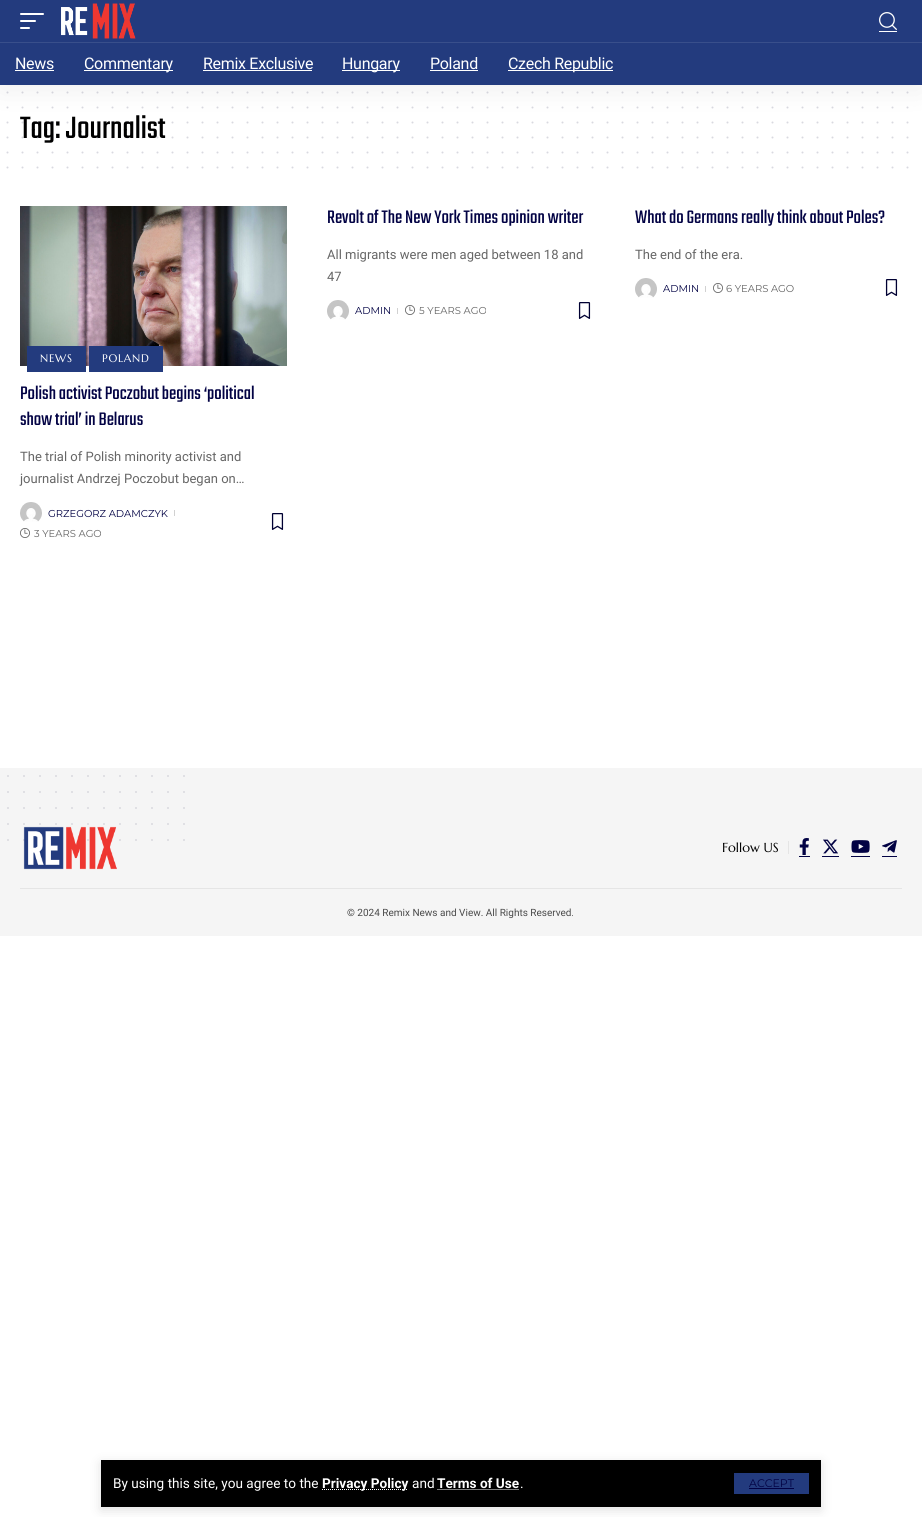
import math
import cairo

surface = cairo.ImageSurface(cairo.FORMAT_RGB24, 922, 1517)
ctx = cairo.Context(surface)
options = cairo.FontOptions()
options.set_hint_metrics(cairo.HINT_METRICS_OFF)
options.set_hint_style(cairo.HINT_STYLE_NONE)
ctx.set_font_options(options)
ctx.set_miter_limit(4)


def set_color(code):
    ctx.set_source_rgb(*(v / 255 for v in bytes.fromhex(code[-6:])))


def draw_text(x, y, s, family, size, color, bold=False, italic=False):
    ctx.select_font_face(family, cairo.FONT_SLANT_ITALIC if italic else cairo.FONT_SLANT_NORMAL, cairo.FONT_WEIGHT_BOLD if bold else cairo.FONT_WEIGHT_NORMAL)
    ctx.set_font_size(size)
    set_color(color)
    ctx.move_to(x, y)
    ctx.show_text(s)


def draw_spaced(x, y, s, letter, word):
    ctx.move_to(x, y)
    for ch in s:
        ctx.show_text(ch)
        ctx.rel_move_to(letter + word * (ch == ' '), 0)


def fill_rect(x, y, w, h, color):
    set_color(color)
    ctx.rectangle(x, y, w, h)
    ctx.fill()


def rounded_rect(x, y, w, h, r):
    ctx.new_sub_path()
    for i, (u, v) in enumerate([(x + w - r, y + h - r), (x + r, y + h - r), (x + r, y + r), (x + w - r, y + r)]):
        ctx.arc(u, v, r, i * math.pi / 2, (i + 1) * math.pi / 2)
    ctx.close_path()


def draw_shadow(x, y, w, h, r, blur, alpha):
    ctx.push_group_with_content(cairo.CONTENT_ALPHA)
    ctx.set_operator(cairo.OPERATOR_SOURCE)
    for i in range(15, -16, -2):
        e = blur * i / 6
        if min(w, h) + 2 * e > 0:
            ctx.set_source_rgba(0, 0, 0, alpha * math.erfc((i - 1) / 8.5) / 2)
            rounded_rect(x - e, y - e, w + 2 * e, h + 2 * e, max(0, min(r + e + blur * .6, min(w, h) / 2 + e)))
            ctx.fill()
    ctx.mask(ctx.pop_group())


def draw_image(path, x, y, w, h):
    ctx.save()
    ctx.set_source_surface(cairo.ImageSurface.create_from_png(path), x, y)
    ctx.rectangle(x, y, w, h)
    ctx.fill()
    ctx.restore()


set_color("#ffffff")
ctx.paint()
ctx.new_path()
ctx.move_to(7.5, 92.5)
ctx.line_to(907.7, 92.5)
set_color("#d9d9e0")
ctx.set_line_cap(cairo.LINE_CAP_ROUND)
ctx.set_dash([0, 15])
ctx.stroke()
ctx.new_path()
ctx.move_to(7.5, 107.5)
ctx.line_to(907.7, 107.5)
ctx.stroke()
draw_text(20, 138, "Tag: Journalist", "Teko Light", 34, "#000000")
ctx.new_path()
ctx.move_to(7.5, 122.5)
ctx.line_to(907.7, 122.5)
ctx.set_source_rgba(0, 0, 0.196, 0.15)
ctx.stroke()
set_color("#000000")
draw_shadow(0, 4, 922, 85, 0, 15, 0.07)
fill_rect(0, 0, 922, 85, "#233b7e")
set_color("#ffffff")
rounded_rect(20, 13, 24, 2, 1)
ctx.fill()
rounded_rect(20, 20, 16, 2, 1)
ctx.fill()
rounded_rect(20, 27, 10, 2, 1)
ctx.fill()
draw_image("assets/img1.png", 61, 3, 75, 36)
draw_image("assets/img2.png", 879, 12, 18, 18)
fill_rect(879, 31, 18, 1, "#ffffff")
fill_rect(0, 42, 922, 1, "#394f8b")
ctx.select_font_face("Roboto")
ctx.set_font_size(16)
set_color("#ffffff")
draw_spaced(15, 69, "News", -0.3, 0)
fill_rect(15, 70, 39, 1, "#ffffff")
fill_rect(84, 70, 89, 1, "#ffffff")
draw_spaced(84, 69, "Commentary", -0.3, 0)
draw_spaced(203, 69, "Remix Exclusive", -0.3, 0)
fill_rect(203, 70, 109, 1, "#ffffff")
fill_rect(342, 70, 58, 1, "#ffffff")
draw_spaced(342, 69, "Hungary", -0.3, 0)
draw_spaced(430, 69, "Poland", -0.3, 0)
fill_rect(430, 70, 48, 1, "#ffffff")
fill_rect(508, 70, 105, 1, "#ffffff")
draw_spaced(508, 69, "Czech Republic", -0.3, 0)
set_color("#000000")
draw_shadow(101, 1463, 720, 47, 0, 6, 0.12)
fill_rect(101, 1460, 720, 47, "#000000")
draw_text(113, 1488, "By using this site, you agree to the", "Roboto", 13.6, "#ffffff")
ctx.new_path()
ctx.move_to(322, 1489.5)
ctx.line_to(408, 1489.5)
ctx.set_line_width(1)
ctx.set_line_cap(cairo.LINE_CAP_BUTT)
ctx.set_dash([1, 1])
ctx.stroke()
draw_text(322, 1488, "Privacy Policy", "Roboto", 13.6, "#ffffff", bold=True)
draw_text(412, 1488, "and", "Roboto", 13.6, "#ffffff")
draw_text(437, 1488, "Terms of Use", "Roboto", 13.6, "#ffffff", bold=True)
ctx.new_path()
ctx.move_to(437.5, 1489.5)
ctx.line_to(519.5, 1489.5)
ctx.stroke()
draw_text(520, 1488, ".", "Roboto", 13.6, "#ffffff")
fill_rect(734, 1473, 75, 21, "#233b7e")
draw_text(749, 1487, "ACCEPT", "Montserrat", 11, "#020244")
fill_rect(749, 1488, 45, 1, "#020244")
ctx.new_path()
ctx.move_to(7.5, 137.5)
ctx.line_to(907.7, 137.5)
ctx.set_source_rgba(0, 0, 0.196, 0.15)
ctx.set_line_width(2)
ctx.set_line_cap(cairo.LINE_CAP_ROUND)
ctx.set_dash([0, 15])
ctx.stroke()
ctx.new_path()
ctx.move_to(7.5, 152.5)
ctx.line_to(907.7, 152.5)
set_color("#d9d9e0")
ctx.stroke()
ctx.new_path()
ctx.move_to(7.5, 167.5)
ctx.line_to(907.7, 167.5)
ctx.stroke()
draw_text(327, 223, "Revolt of The New York Times opinion writer", "Teko Light", 20, "#020244")
draw_text(327, 259, "All migrants were men aged between 18 and", "Roboto", 13, "#666666")
draw_text(327, 281, "47", "Roboto", 13, "#666666")
draw_image("assets/img3.png", 327, 300, 22, 20)
draw_text(355, 314, "ADMIN", "Montserrat", 10, "#020244")
fill_rect(397, 308, 1, 6, "#d1d1d1")
draw_image("assets/img4.png", 405, 305, 10, 10)
draw_text(419, 314, "5 YEARS AGO", "Montserrat", 10, "#666666")
draw_image("assets/img5.png", 578, 302, 13, 17)
draw_text(635, 223, "What do Germans really think about Poles?", "Teko Light", 20, "#020244")
draw_text(635, 259, "The end of the era.", "Roboto", 13, "#666666")
draw_image("assets/img3.png", 635, 278, 22, 20)
draw_text(663, 292, "ADMIN", "Montserrat", 10, "#020244")
fill_rect(705, 286, 1, 6, "#d1d1d1")
draw_image("assets/img4.png", 713, 283, 10, 10)
draw_text(726, 292, "6 YEARS AGO", "Montserrat", 10, "#666666")
draw_image("assets/img5.png", 885, 279, 13, 17)
draw_image("assets/img6.png", 20, 206, 267, 160)
fill_rect(27, 346, 59, 26, "#233b7e")
ctx.select_font_face("Marcellus")
ctx.set_font_size(11)
set_color("#ffffff")
draw_spaced(40, 362, "NEWS", 0.75, 0)
fill_rect(89, 346, 74, 26, "#233b7e")
set_color("#ffffff")
draw_spaced(102, 362, "POLAND", 0.75, 0)
draw_text(20, 399, "Polish activist Poczobut begins ‘political", "Teko Light", 20, "#020244")
draw_text(20, 425, "show trial’ in Belarus", "Teko Light", 20, "#020244")
draw_text(20, 461, "The trial of Polish minority activist and", "Roboto", 13, "#666666")
draw_text(20, 483, "journalist Andrzej Poczobut began on…", "Roboto", 13, "#666666")
draw_image("assets/img7.png", 20, 502, 22, 20)
draw_text(48, 517, "GRZEGORZ ADAMCZYK", "Montserrat", 10, "#020244")
fill_rect(174, 510, 1, 6, "#d1d1d1")
draw_image("assets/img4.png", 20, 528, 10, 10)
draw_text(34, 537, "3 YEARS AGO", "Montserrat", 10, "#666666")
draw_image("assets/img5.png", 271, 513, 13, 17)
fill_rect(0, 768, 922, 168, "#f5f5f5")
ctx.new_path()
ctx.move_to(8, 776)
ctx.line_to(184.2, 776)
set_color("#c4c4ce")
ctx.set_line_width(1.5)
ctx.set_dash([0, 16])
ctx.stroke()
ctx.new_path()
ctx.move_to(8, 792)
ctx.line_to(184.2, 792)
ctx.stroke()
ctx.new_path()
ctx.move_to(8, 808)
ctx.line_to(184.2, 808)
ctx.stroke()
ctx.new_path()
ctx.move_to(8, 824)
ctx.line_to(184.2, 824)
ctx.stroke()
ctx.new_path()
ctx.move_to(8, 840)
ctx.line_to(184.2, 840)
ctx.stroke()
draw_image("assets/img8.png", 23, 826, 94, 44)
fill_rect(788, 841, 1, 13, "#e5e5e5")
draw_text(722, 852, "Follow US", "Marcellus", 13, "#000000")
draw_image("assets/img9.png", 799, 838, 10, 17)
fill_rect(799, 856, 11, 1, "#020244")
draw_image("assets/img10.png", 823, 839, 15, 15)
fill_rect(822, 856, 17, 1, "#020244")
draw_image("assets/img11.png", 851, 840, 19, 13)
fill_rect(851, 856, 19, 1, "#020244")
draw_image("assets/img12.png", 882, 840, 15, 13)
fill_rect(882, 856, 15, 1, "#020244")
fill_rect(20, 888, 882, 1, "#e5e5e5")
draw_text(347, 916, "© 2024 Remix News and View. All Rights Reserved.", "Roboto", 10, "#4a4a4a")
surface.write_to_png("output.png")
